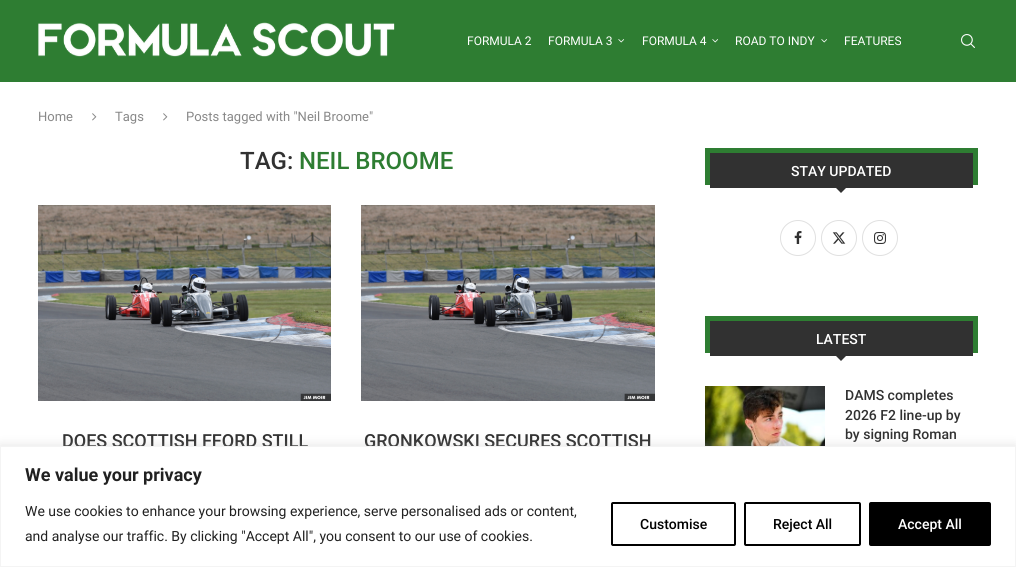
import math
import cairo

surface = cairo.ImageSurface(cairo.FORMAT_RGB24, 1016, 567)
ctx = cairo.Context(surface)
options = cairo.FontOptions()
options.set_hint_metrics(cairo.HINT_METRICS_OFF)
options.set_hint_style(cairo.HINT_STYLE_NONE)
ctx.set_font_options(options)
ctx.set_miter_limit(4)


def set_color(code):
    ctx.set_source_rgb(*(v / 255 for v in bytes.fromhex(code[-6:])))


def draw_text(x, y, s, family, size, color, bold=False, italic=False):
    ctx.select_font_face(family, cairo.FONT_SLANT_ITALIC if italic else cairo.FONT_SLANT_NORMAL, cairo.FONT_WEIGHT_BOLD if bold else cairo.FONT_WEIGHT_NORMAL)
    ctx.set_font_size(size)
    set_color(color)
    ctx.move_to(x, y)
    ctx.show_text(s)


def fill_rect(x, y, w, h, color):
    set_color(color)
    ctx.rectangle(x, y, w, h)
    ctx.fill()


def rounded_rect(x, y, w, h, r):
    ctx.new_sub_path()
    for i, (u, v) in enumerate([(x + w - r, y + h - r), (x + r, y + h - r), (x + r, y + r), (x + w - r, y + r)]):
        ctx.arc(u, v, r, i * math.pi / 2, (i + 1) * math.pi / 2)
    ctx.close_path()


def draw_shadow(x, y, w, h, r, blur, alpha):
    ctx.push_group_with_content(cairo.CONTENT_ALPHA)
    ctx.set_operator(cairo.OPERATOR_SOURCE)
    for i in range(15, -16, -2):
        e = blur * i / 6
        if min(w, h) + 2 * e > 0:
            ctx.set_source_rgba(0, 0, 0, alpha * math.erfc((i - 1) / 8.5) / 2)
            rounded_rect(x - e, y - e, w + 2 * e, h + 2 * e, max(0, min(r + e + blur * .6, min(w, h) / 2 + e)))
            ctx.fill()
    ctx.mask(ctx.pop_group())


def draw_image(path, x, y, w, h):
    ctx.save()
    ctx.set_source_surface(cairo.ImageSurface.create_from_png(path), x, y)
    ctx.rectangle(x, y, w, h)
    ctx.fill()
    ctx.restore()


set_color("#ffffff")
ctx.paint()
fill_rect(0, 0, 1016, 82, "#2e7d32")
draw_image("assets/img1.png", 38, 22, 357, 35)
draw_text(467, 45, "FORMULA 2", "Roboto", 12, "#ffffff")
draw_text(548, 45, "FORMULA 3", "Roboto", 12, "#ffffff")
draw_image("assets/img2.png", 618, 39, 7, 4)
draw_text(642, 45, "FORMULA 4", "Roboto", 12, "#ffffff")
draw_image("assets/img3.png", 712, 39, 6, 4)
draw_text(735, 45, "ROAD TO INDY", "Roboto", 12, "#ffffff")
draw_image("assets/img3.png", 821, 39, 6, 4)
draw_text(844, 45, "FEATURES", "Roboto", 12, "#ffffff")
draw_image("assets/img4.png", 961, 34, 14, 14)
draw_text(38, 121, "Home", "Roboto", 13, "#888888")
draw_image("assets/img5.png", 92, 113, 5, 8)
draw_text(115, 121, "Tags", "Roboto", 13, "#888888")
draw_image("assets/img5.png", 163, 113, 5, 8)
draw_text(186, 121, "Posts tagged with \"Neil Broome\"", "Roboto", 13, "#888888")
draw_text(240, 169, "TAG:", "Roboto Medium", 24, "#313131")
draw_text(299, 169, "NEIL BROOME", "Roboto Medium", 24, "#2e7d32")
draw_image("assets/img6.png", 38, 205, 293, 196)
draw_text(62, 447, "DOES SCOTTISH FFORD STILL", "Roboto Medium", 18, "#313131")
draw_image("assets/img7.png", 361, 205, 294, 196)
draw_text(364, 447, "GRONKOWSKI SECURES SCOTTISH", "Roboto Medium", 18, "#313131")
fill_rect(705, 148, 273, 37, "#2e7d32")
fill_rect(710, 153, 263, 35, "#313131")
draw_text(791, 176, "STAY UPDATED", "Roboto Medium", 14, "#ffffff")
set_color("#313131")
ctx.new_path()
ctx.move_to(835, 187)
ctx.line_to(847, 187)
ctx.line_to(841, 193)
ctx.close_path()
ctx.fill()
ctx.arc(798, 238, 17.5, 0, 2 * math.pi)
set_color("#e0e0e0")
ctx.set_line_width(1)
ctx.stroke()
draw_image("assets/img8.png", 794, 231, 8, 13)
ctx.arc(839, 238, 17.5, 0, 2 * math.pi)
ctx.stroke()
draw_image("assets/img9.png", 832, 232, 14, 12)
ctx.arc(880, 238, 17.5, 0, 2 * math.pi)
ctx.stroke()
draw_image("assets/img10.png", 874, 232, 12, 12)
fill_rect(705, 316, 273, 37, "#2e7d32")
fill_rect(710, 321, 263, 35, "#313131")
draw_text(816, 344, "LATEST", "Roboto Medium", 14, "#ffffff")
set_color("#313131")
ctx.new_path()
ctx.move_to(835, 355)
ctx.line_to(847, 355)
ctx.line_to(841, 361)
ctx.close_path()
ctx.fill()
draw_image("assets/img11.png", 705, 386, 120, 60)
draw_text(845, 400, "DAMS completes", "Roboto Medium", 14, "#313131")
draw_text(845, 420, "2026 F2 line-up by", "Roboto Medium", 14, "#313131")
draw_text(845, 439, "by signing Roman", "Roboto Medium", 14, "#313131")
set_color("#acabab")
draw_shadow(0, 445, 1016, 121, 0, 5, 0.3)
set_color("#ffffff")
ctx.rectangle(0.5, 446.5, 1015, 120)
ctx.fill_preserve()
set_color("#f4f4f4")
ctx.stroke()
draw_text(25, 481, "We value your privacy", "Roboto", 18, "#212121", bold=True)
draw_text(25, 516, "We use cookies to enhance your browsing experience, serve personalised ads or content,", "Roboto", 14, "#212121")
draw_text(25, 541, "and analyse our traffic. By clicking \"Accept All\", you consent to our use of cookies.", "Roboto", 14, "#212121")
rounded_rect(612, 503, 123, 42, 1)
set_color("#000000")
ctx.set_line_width(2)
ctx.stroke()
draw_text(640, 529, "Customise", "Roboto Medium", 14, "#000000")
rounded_rect(745, 503, 115, 42, 1)
ctx.stroke()
draw_text(773, 529, "Reject All", "Roboto Medium", 14, "#000000")
rounded_rect(870, 503, 120, 42, 1)
ctx.fill_preserve()
ctx.stroke()
draw_text(898, 529, "Accept All", "Roboto Medium", 14, "#ffffff")
surface.write_to_png("output.png")
